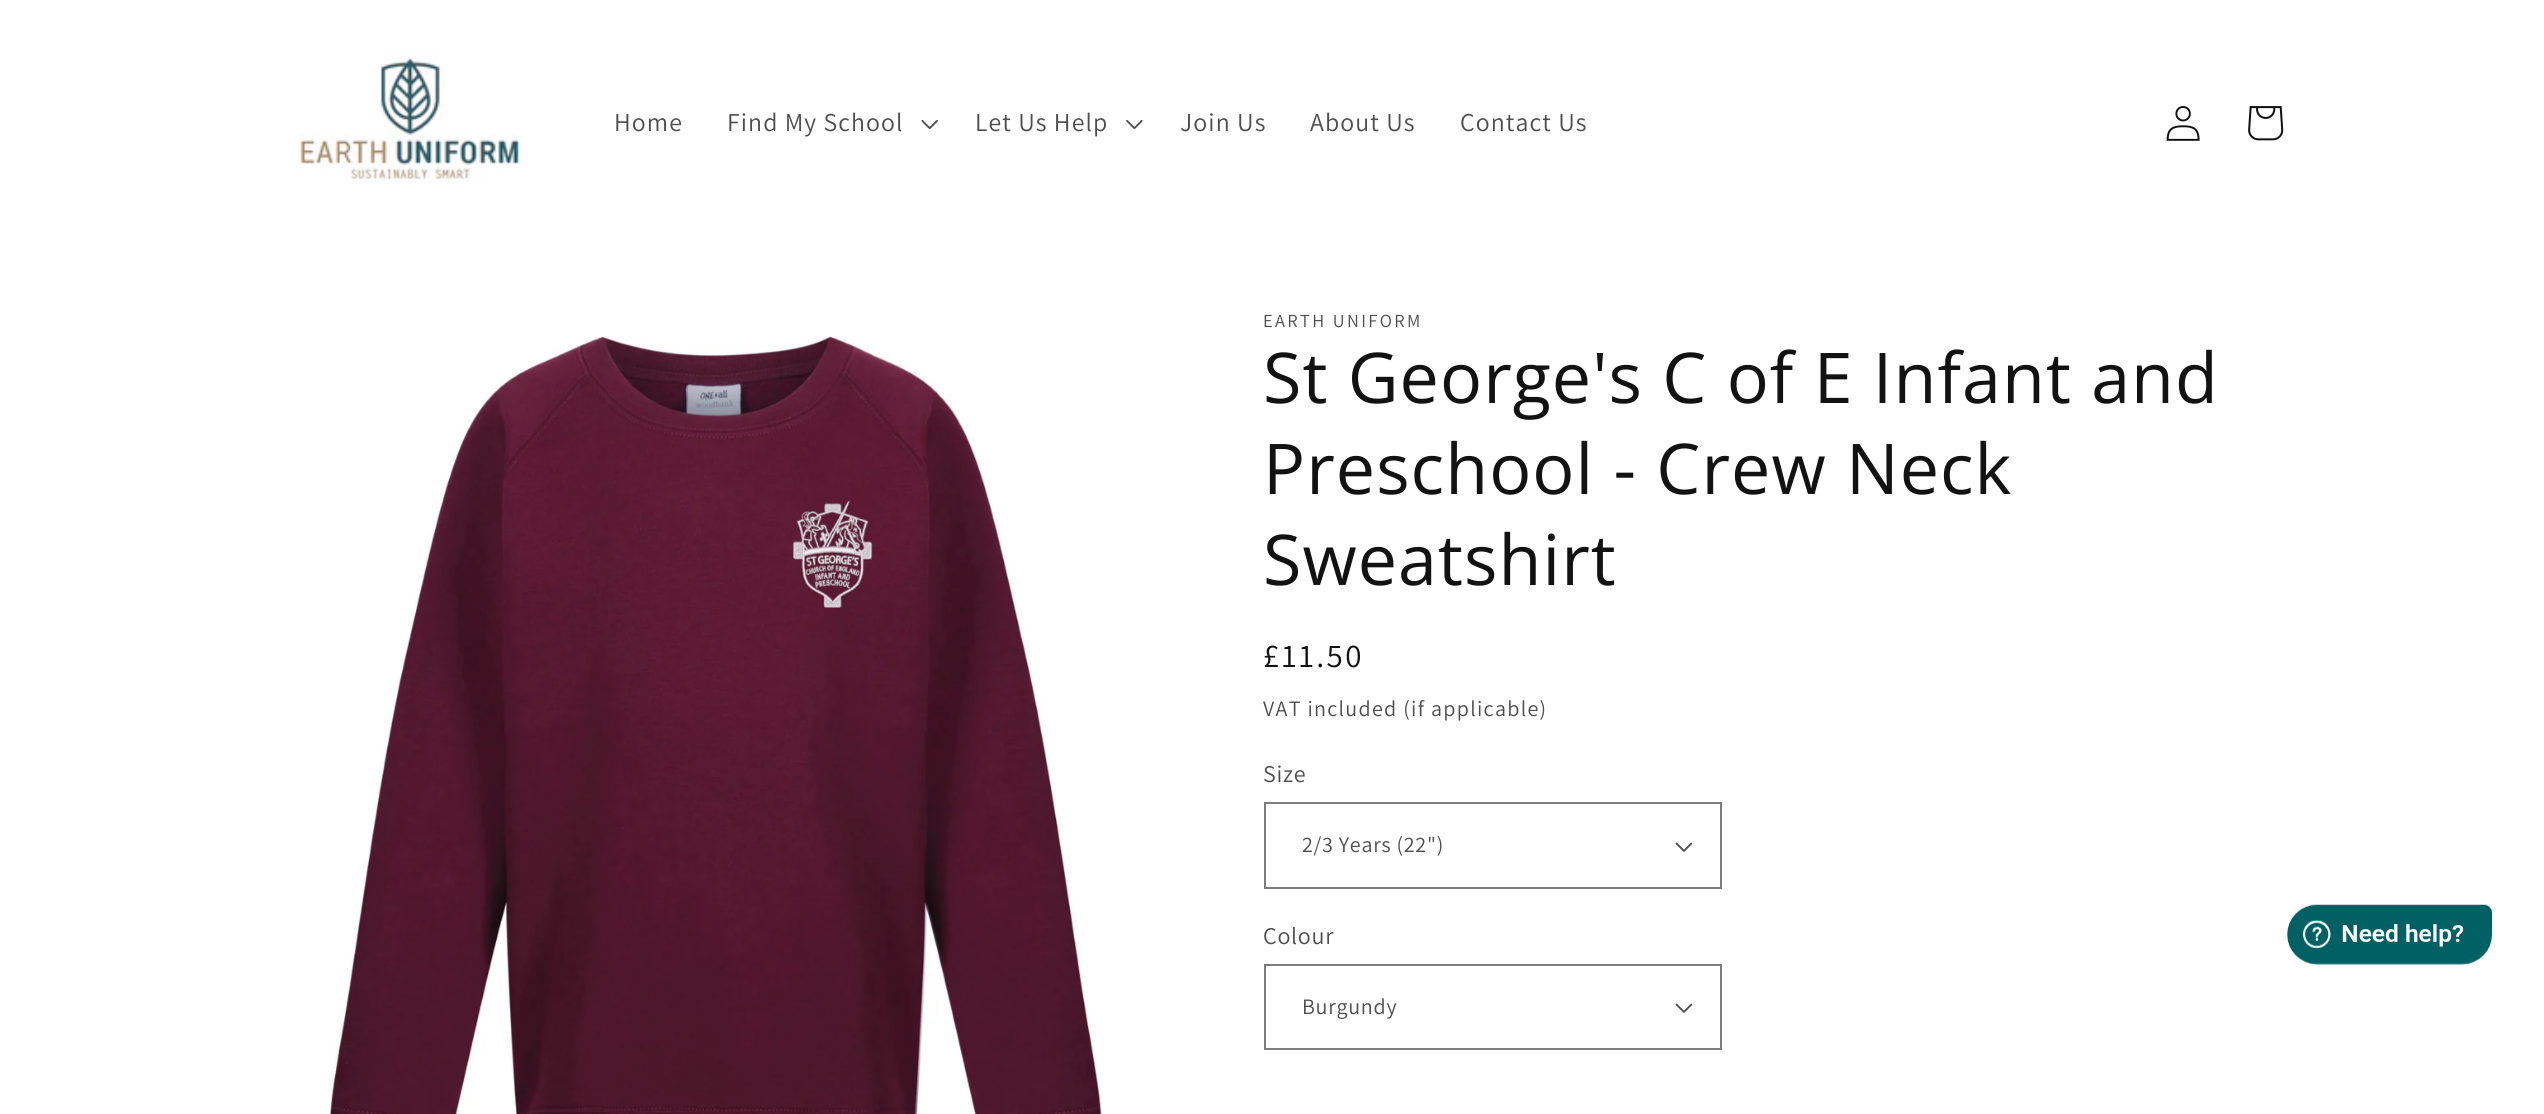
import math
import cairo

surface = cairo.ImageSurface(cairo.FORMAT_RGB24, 2544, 1114)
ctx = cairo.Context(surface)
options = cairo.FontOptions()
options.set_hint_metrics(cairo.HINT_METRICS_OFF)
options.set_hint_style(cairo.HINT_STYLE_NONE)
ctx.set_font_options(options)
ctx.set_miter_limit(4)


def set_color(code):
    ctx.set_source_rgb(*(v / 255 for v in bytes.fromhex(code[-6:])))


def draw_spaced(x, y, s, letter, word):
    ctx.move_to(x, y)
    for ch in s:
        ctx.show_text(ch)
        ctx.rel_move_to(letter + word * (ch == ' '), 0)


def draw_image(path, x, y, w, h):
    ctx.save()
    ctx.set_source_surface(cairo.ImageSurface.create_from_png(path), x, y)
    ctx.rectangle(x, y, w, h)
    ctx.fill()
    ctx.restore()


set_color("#ffffff")
ctx.paint()
draw_image("assets/img1.png", 299, 51, 222, 133)
ctx.select_font_face("Assistant")
ctx.set_font_size(25.75)
set_color("#4d4d4d")
draw_spaced(614, 131, "Home", 1.1, 0)
draw_spaced(727, 131, "Find My School", 1.1, 0)
draw_image("assets/img2.png", 921, 120, 17, 9)
draw_spaced(975, 131, "Let Us Help", 1.1, 0)
draw_image("assets/img3.png", 1126, 120, 17, 9)
draw_spaced(1180, 131, "Join Us", 1.1, 0)
draw_spaced(1310, 131, "About Us", 1.1, 0)
draw_spaced(1460, 131, "Contact Us", 1.1, 0)
draw_image("assets/img4.png", 2166, 106, 34, 35)
draw_image("assets/img5.png", 2248, 106, 36, 35)
draw_image("assets/img6.png", 330, 336, 772, 778)
ctx.set_font_size(18.4)
draw_spaced(1263, 327, "EARTH UNIFORM", 2.4, 0)
ctx.select_font_face("Open Sans")
ctx.set_font_size(70)
set_color("#121212")
draw_spaced(1263, 403, "St George's C of E Infant and", 1.05, 0)
draw_spaced(1263, 494, "Preschool - Crew Neck", 1.05, 0)
draw_spaced(1263, 585, "Sweatshirt", 1.05, 0)
ctx.select_font_face("Assistant")
ctx.set_font_size(33)
draw_spaced(1263, 667, "£11.50", 2.4, 0)
ctx.set_font_size(22)
set_color("#4d4d4d")
draw_spaced(1263, 716, "VAT included (if applicable)", 1.3, 0)
ctx.set_font_size(24)
draw_spaced(1263, 782, "Size", 0.75, 0)
draw_image("assets/img7.png", 1675, 842, 18, 10)
ctx.rectangle(1265, 803, 456, 85)
set_color("#7d7d7d")
ctx.stroke()
ctx.set_font_size(22)
set_color("#4d4d4d")
draw_spaced(1302, 852, "2/3 Years (22\")", 0.75, 0)
ctx.set_font_size(24)
draw_spaced(1263, 944, "Colour", 0.75, 0)
draw_image("assets/img7.png", 1675, 1003, 18, 10)
ctx.rectangle(1265, 965, 456, 84)
set_color("#7d7d7d")
ctx.stroke()
ctx.set_font_size(22)
set_color("#4d4d4d")
draw_spaced(1302, 1014, "Burgundy", 0.75, 0)
draw_image("assets/img8.png", 2287, 904, 205, 61)
surface.write_to_png("output.png")
